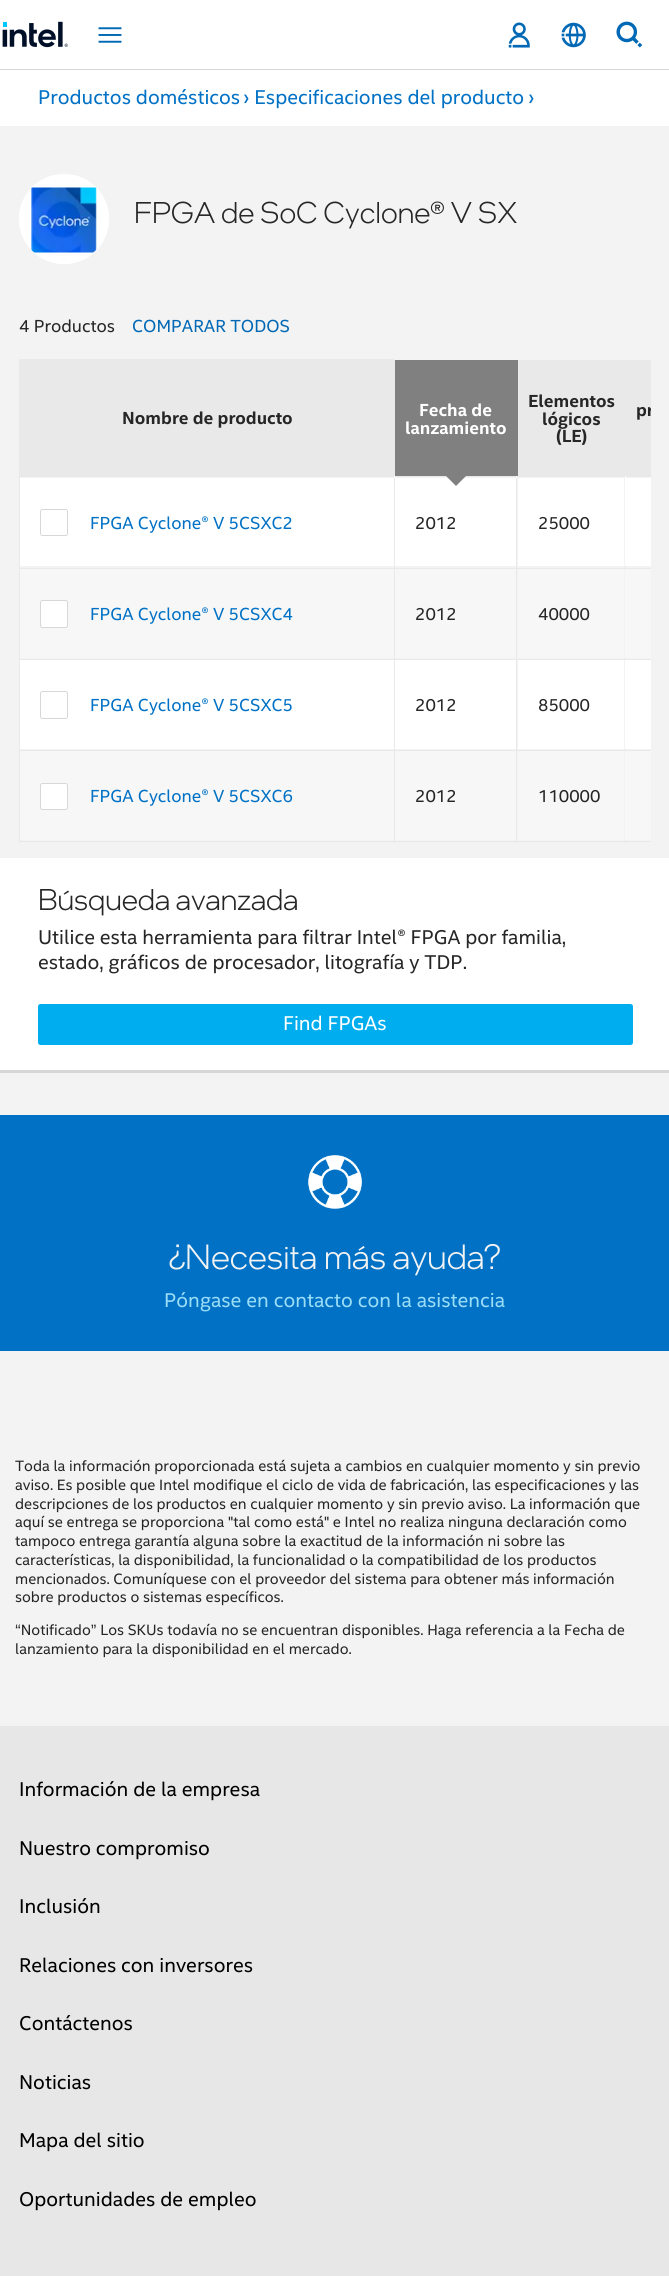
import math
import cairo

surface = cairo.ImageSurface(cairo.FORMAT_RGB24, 669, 2276)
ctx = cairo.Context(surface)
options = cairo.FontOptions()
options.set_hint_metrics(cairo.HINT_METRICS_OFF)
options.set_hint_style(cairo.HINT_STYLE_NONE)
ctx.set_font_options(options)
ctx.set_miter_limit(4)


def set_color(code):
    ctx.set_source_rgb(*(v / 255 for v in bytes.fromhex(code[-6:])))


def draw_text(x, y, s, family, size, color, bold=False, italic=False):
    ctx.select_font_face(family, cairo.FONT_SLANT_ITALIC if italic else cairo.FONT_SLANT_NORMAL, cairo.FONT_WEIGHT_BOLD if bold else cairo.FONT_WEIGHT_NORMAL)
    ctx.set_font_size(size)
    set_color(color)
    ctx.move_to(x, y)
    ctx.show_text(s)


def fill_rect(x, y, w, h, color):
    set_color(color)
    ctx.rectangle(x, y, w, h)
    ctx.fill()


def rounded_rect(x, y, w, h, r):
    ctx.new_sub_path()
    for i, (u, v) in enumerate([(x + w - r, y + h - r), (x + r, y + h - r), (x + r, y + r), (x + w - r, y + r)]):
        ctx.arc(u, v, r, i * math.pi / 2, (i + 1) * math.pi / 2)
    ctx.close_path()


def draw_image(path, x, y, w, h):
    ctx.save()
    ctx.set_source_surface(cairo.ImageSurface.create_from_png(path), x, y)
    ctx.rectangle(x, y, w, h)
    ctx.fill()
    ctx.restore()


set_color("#ffffff")
ctx.paint()
fill_rect(0, 69, 669, 1, "#d7d7d7")
draw_image("assets/img1.png", 2, 21, 66, 27)
draw_image("assets/img2.png", 98, 27, 24, 16)
draw_image("assets/img3.png", 508, 22, 22, 26)
draw_image("assets/img4.png", 561, 22, 25, 26)
draw_image("assets/img5.png", 616, 21, 27, 27)
fill_rect(0, 126, 669, 1600, "#f3f3f3")
draw_text(38, 104, "Productos domésticos", "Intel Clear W", 20, "#0071c5")
draw_text(243, 104, "› Especificaciones del producto", "Intel Clear W", 20, "#0071c5")
draw_text(528, 104, "›", "Intel Clear W", 20, "#0071c5")
set_color("#ffffff")
ctx.new_path()
ctx.arc(64, 219, 45, 0, 2 * math.pi)
ctx.fill()
ctx.save()
rounded_rect(19, 174, 90, 90, 45)
ctx.clip()
ctx.new_path()
ctx.move_to(19, 175)
ctx.line_to(109, 175)
ctx.line_to(109, 219)
ctx.curve_to(109, 244, 89, 264, 64, 264)
ctx.curve_to(39, 264, 19, 244, 19, 219)
ctx.close_path()
ctx.fill()
ctx.restore()
draw_image("assets/img6.png", 31, 187, 66, 66)
draw_text(134, 223, "FPGA de SoC Cyclone® V SX", "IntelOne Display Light", 30, "#262626")
draw_text(19, 332, "4 Productos", "Intel Clear W", 17.5, "#262626")
draw_text(132, 332, "COMPARAR TODOS", "Intel Clear W", 17.5, "#0068b5")
fill_rect(19, 359, 375, 1, "#e9e9e9")
fill_rect(19, 841, 632, 1, "#e9e9e9")
fill_rect(19, 359, 1, 484, "#e9e9e9")
fill_rect(19, 476, 632, 1, "#e9e9e9")
fill_rect(19, 568, 632, 1, "#e9e9e9")
fill_rect(19, 659, 632, 1, "#e9e9e9")
fill_rect(19, 750, 632, 1, "#e9e9e9")
fill_rect(394, 750, 1, 93, "#e9e9e9")
fill_rect(394, 659, 1, 92, "#e9e9e9")
fill_rect(394, 568, 1, 92, "#e9e9e9")
fill_rect(394, 476, 1, 93, "#e9e9e9")
fill_rect(394, 476, 1, 2, "#ffffff")
fill_rect(20, 360, 375, 116, "#e9e9e9")
draw_text(122, 424, "Nombre de producto", "Intel Clear W", 17.5, "#262626", bold=True)
fill_rect(516, 750, 1, 93, "#e9e9e9")
fill_rect(516, 659, 1, 92, "#e9e9e9")
fill_rect(516, 568, 1, 92, "#e9e9e9")
fill_rect(516, 476, 1, 93, "#e9e9e9")
fill_rect(516, 476, 1, 2, "#ffffff")
fill_rect(395, 360, 123, 116, "#808080")
draw_text(419, 416, "Fecha de", "Intel Clear W", 17.5, "#ffffff", bold=True)
draw_text(405, 434, "lanzamiento", "Intel Clear W", 17.5, "#ffffff", bold=True)
fill_rect(395, 478, 121, 88, "#ffffff")
set_color("#808080")
ctx.new_path()
ctx.move_to(446, 476)
ctx.line_to(466, 476)
ctx.line_to(456, 486)
ctx.close_path()
ctx.fill()
fill_rect(625, 476, 1, 2, "#ffffff")
fill_rect(518, 360, 133, 116, "#e9e9e9")
draw_text(528, 407, "Elementos", "Intel Clear W", 17.5, "#262626", bold=True)
draw_text(542, 425, "lógicos", "Intel Clear W", 17.5, "#262626", bold=True)
draw_text(556, 442, "(LE)", "Intel Clear W", 17.5, "#262626", bold=True)
ctx.save()
ctx.rectangle(19, 359, 632, 484)
ctx.clip()
draw_text(636, 416, "pr", "Intel Clear W", 17.5, "#262626", bold=True)
ctx.restore()
fill_rect(625, 478, 26, 88, "#ffffff")
fill_rect(20, 478, 374, 88, "#ffffff")
rounded_rect(40.5, 509.5, 27, 26, 2)
set_color("#d7d7d7")
ctx.set_line_width(1)
ctx.stroke()
draw_text(90, 529, "FPGA Cyclone® V 5CSXC2", "Intel Clear W", 17.5, "#0071c5")
draw_text(415, 529, "2012", "Intel Clear W", 17.5, "#262626")
fill_rect(625, 566, 1, 3, "#e9e9e9")
fill_rect(518, 478, 106, 88, "#ffffff")
draw_text(538, 529, "25000", "Intel Clear W", 17.5, "#262626")
fill_rect(625, 569, 26, 89, "#f7f7f7")
fill_rect(20, 569, 374, 89, "#f7f7f7")
set_color("#ffffff")
rounded_rect(40.5, 600.5, 27, 27, 2)
ctx.fill_preserve()
set_color("#d7d7d7")
ctx.stroke()
draw_text(90, 620, "FPGA Cyclone® V 5CSXC4", "Intel Clear W", 17.5, "#0071c5")
fill_rect(395, 569, 121, 89, "#f7f7f7")
draw_text(415, 620, "2012", "Intel Clear W", 17.5, "#262626")
fill_rect(625, 658, 1, 2, "#e9e9e9")
fill_rect(518, 569, 106, 89, "#f7f7f7")
draw_text(538, 620, "40000", "Intel Clear W", 17.5, "#262626")
fill_rect(625, 660, 26, 89, "#ffffff")
fill_rect(20, 660, 374, 89, "#ffffff")
rounded_rect(40.5, 691.5, 27, 27, 2)
set_color("#d7d7d7")
ctx.stroke()
draw_text(90, 711, "FPGA Cyclone® V 5CSXC5", "Intel Clear W", 17.5, "#0071c5")
fill_rect(395, 660, 121, 89, "#ffffff")
draw_text(415, 711, "2012", "Intel Clear W", 17.5, "#262626")
fill_rect(625, 749, 1, 2, "#e9e9e9")
fill_rect(518, 660, 106, 89, "#ffffff")
draw_text(538, 711, "85000", "Intel Clear W", 17.5, "#262626")
fill_rect(625, 751, 26, 89, "#f7f7f7")
fill_rect(20, 751, 374, 89, "#f7f7f7")
set_color("#ffffff")
rounded_rect(40.5, 783.5, 27, 26, 2)
ctx.fill_preserve()
set_color("#d7d7d7")
ctx.stroke()
draw_text(90, 802, "FPGA Cyclone® V 5CSXC6", "Intel Clear W", 17.5, "#0071c5")
fill_rect(395, 751, 121, 89, "#f7f7f7")
draw_text(415, 802, "2012", "Intel Clear W", 17.5, "#262626")
fill_rect(625, 840, 1, 3, "#e9e9e9")
fill_rect(518, 751, 106, 89, "#f7f7f7")
draw_text(538, 802, "110000", "Intel Clear W", 17.5, "#262626")
fill_rect(0, 858, 669, 212, "#ffffff")
fill_rect(0, 1070, 669, 3, "#d7d7d7")
draw_text(38, 910, "Búsqueda avanzada", "IntelOne Display Light", 30, "#262626")
draw_text(38, 944, "Utilice esta herramienta para filtrar Intel® FPGA por familia,", "Intel Clear W", 20, "#262626")
draw_text(38, 969, "estado, gráficos de procesador, litografía y TDP.", "Intel Clear W", 20, "#262626")
set_color("#00aeef")
rounded_rect(38, 1004, 595, 41, 2.5)
ctx.fill()
draw_text(283, 1030, "Find FPGAs", "Intel Clear W", 20, "#ffffff")
fill_rect(0, 1115, 669, 236, "#0071c5")
draw_image("assets/img7.png", 308, 1155, 54, 54)
draw_text(169, 1269, "¿Necesita más ayuda?", "IntelOne Display Light", 35, "#f3f3f3")
draw_text(164, 1307, "Póngase en contacto con la asistencia", "Intel Clear W", 20, "#9addf7")
draw_text(15, 1471, "Toda la información proporcionada está sujeta a cambios en cualquier momento y sin previo", "Intel Clear W", 15, "#262626")
draw_text(15, 1490, "aviso. Es posible que Intel modifique el ciclo de vida de fabricación, las especificaciones y las", "Intel Clear W", 15, "#262626")
draw_text(15, 1509, "descripciones de los productos en cualquier momento y sin previo aviso. La información que", "Intel Clear W", 15, "#262626")
draw_text(15, 1527, "aquí se entrega se proporciona \"tal como está\" e Intel no realiza ninguna declaración como", "Intel Clear W", 15, "#262626")
draw_text(15, 1546, "tampoco entrega garantía alguna sobre la exactitud de la información ni sobre las", "Intel Clear W", 15, "#262626")
draw_text(15, 1565, "características, la disponibilidad, la funcionalidad o la compatibilidad de los productos", "Intel Clear W", 15, "#262626")
draw_text(15, 1584, "mencionados. Comuníquese con el proveedor del sistema para obtener más información", "Intel Clear W", 15, "#262626")
draw_text(15, 1602, "sobre productos o sistemas específicos.", "Intel Clear W", 15, "#262626")
draw_text(15, 1635, "“Notificado” Los SKUs todavía no se encuentran disponibles. Haga referencia a la Fecha de", "Intel Clear W", 15, "#262626")
draw_text(15, 1654, "lanzamiento para la disponibilidad en el mercado.", "Intel Clear W", 15, "#262626")
fill_rect(0, 1726, 669, 550, "#e7e7e7")
draw_text(19, 1796, "Información de la empresa", "Intel Clear W", 20, "#000000")
draw_text(19, 1855, "Nuestro compromiso", "Intel Clear W", 20, "#000000")
draw_text(19, 1913, "Inclusión", "Intel Clear W", 20, "#000000")
draw_text(19, 1972, "Relaciones con inversores", "Intel Clear W", 20, "#000000")
draw_text(19, 2030, "Contáctenos", "Intel Clear W", 20, "#000000")
draw_text(19, 2089, "Noticias", "Intel Clear W", 20, "#000000")
draw_text(19, 2147, "Mapa del sitio", "Intel Clear W", 20, "#000000")
draw_text(19, 2206, "Oportunidades de empleo", "Intel Clear W", 20, "#000000")
surface.write_to_png("output.png")
